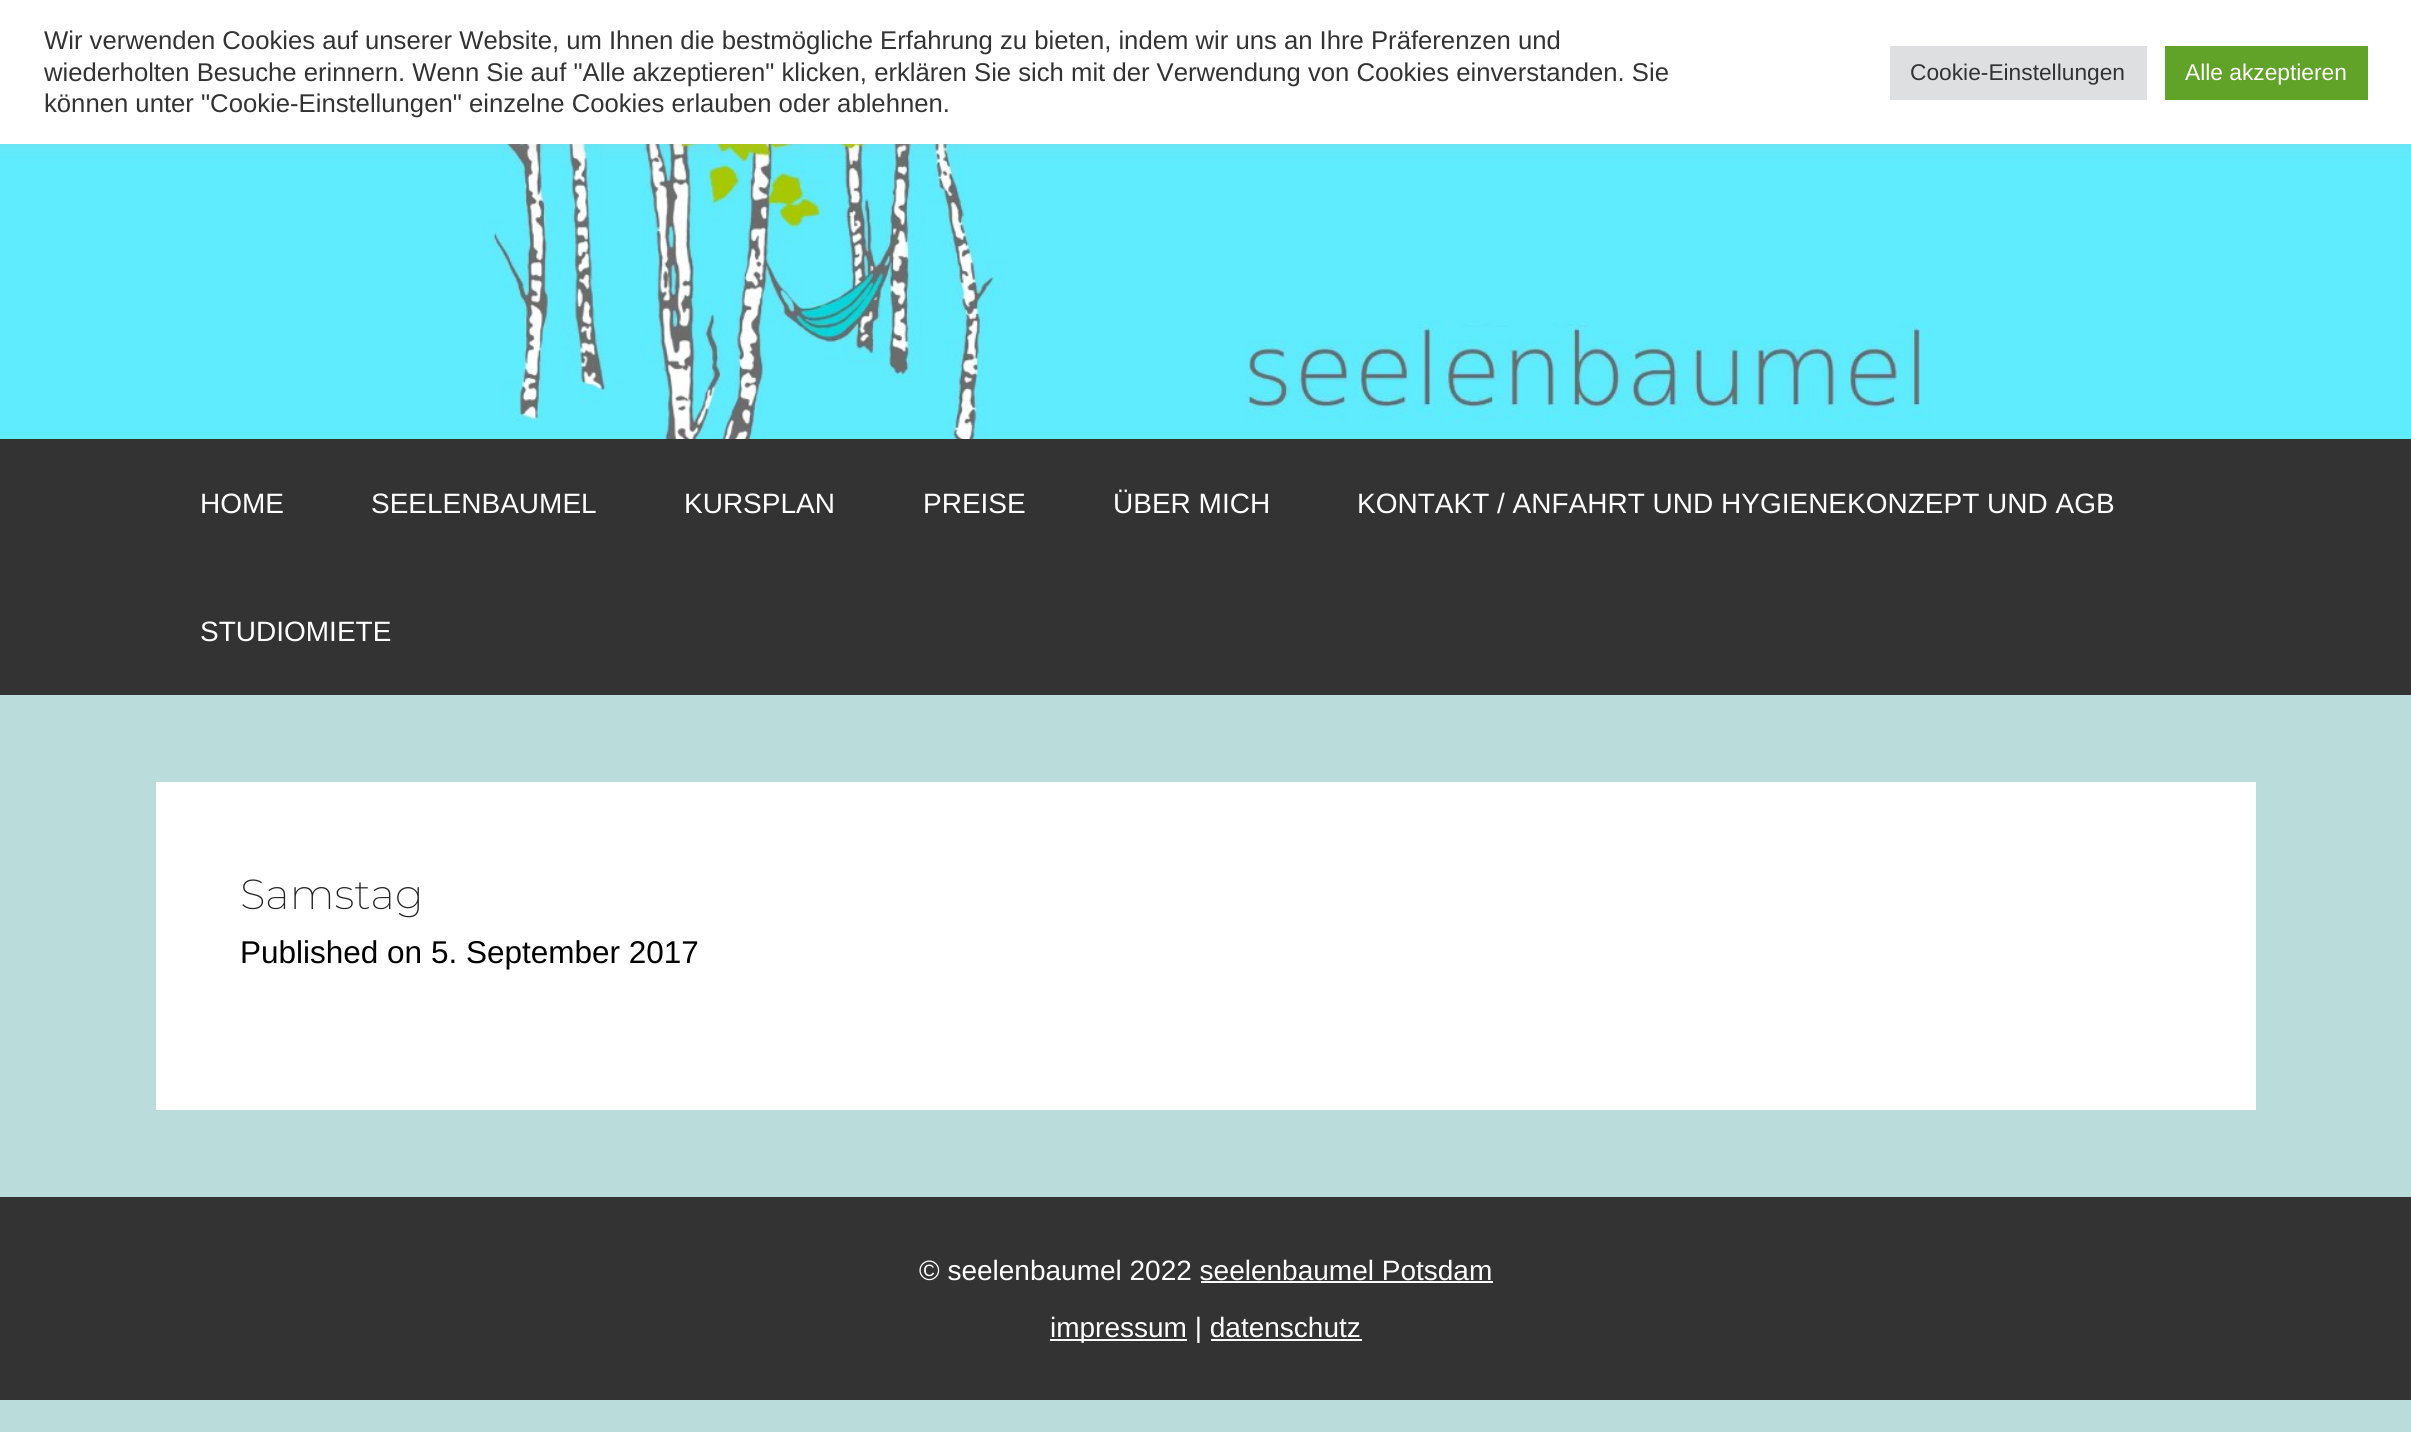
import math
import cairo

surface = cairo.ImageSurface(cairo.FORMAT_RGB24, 2411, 1432)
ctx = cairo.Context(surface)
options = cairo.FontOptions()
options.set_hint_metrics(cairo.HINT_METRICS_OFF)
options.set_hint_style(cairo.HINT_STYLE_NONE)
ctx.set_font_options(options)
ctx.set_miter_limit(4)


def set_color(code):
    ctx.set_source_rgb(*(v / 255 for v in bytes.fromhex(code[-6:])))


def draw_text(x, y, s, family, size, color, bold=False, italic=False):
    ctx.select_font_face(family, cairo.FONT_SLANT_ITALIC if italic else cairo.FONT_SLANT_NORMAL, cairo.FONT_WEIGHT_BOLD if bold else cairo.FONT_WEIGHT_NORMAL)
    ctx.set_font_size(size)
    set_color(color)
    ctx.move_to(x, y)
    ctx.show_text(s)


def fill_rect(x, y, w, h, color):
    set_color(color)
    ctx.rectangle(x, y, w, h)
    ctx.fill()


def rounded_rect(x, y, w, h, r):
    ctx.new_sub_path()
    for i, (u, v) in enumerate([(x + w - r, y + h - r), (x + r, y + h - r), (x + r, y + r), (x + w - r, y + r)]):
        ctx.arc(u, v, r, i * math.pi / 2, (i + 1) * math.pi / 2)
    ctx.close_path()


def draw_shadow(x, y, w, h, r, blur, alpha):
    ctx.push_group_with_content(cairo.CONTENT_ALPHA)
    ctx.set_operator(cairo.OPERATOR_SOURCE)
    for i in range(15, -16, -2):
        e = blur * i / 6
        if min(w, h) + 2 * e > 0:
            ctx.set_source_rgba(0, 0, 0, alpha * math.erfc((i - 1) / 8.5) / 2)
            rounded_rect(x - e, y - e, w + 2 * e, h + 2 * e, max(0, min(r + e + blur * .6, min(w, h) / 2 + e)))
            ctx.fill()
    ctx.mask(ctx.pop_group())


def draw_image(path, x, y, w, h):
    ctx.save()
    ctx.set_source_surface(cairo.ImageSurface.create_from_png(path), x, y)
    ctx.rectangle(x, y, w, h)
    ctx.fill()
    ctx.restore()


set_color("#badddc")
ctx.paint()
draw_image("assets/img1.png", 0, 144, 2411, 295)
set_color("#acabab")
draw_shadow(0, -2, 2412, 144, 0, 9, 0.3)
fill_rect(0, 0, 2411, 144, "#ffffff")
draw_text(44, 49, "Wir verwenden Cookies auf unserer Website, um Ihnen die bestmögliche Erfahrung zu bieten, indem wir uns an Ihre Präferenzen und", "Liberation Sans", 25.67, "#333333")
draw_text(44, 81, "wiederholten Besuche erinnern. Wenn Sie auf \"Alle akzeptieren\" klicken, erklären Sie sich mit der Verwendung von Cookies einverstanden. Sie", "Liberation Sans", 25.67, "#333333")
draw_text(44, 112, "können unter \"Cookie-Einstellungen\" einzelne Cookies erlauben oder ablehnen.", "Liberation Sans", 25.67, "#333333")
fill_rect(1890, 46, 257, 54, "#dedfe0")
draw_text(1910, 80, "Cookie-Einstellungen", "Liberation Sans", 22.75, "#333333")
fill_rect(2165, 46, 203, 54, "#61a229")
draw_text(2185, 80, "Alle akzeptieren", "Liberation Sans", 22.75, "#ffffff")
fill_rect(0, 439, 2411, 256, "#333333")
draw_text(200, 513, "HOME", "Liberation Sans", 28, "#ffffff")
draw_text(371, 513, "SEELENBAUMEL", "Liberation Sans", 28, "#ffffff")
draw_text(684, 513, "KURSPLAN", "Liberation Sans", 28, "#ffffff")
draw_text(923, 513, "PREISE", "Liberation Sans", 28, "#ffffff")
draw_text(1113, 513, "ÜBER MICH", "Liberation Sans", 28, "#ffffff")
draw_text(1357, 513, "KONTAKT / ANFAHRT UND HYGIENEKONZEPT UND AGB", "Liberation Sans", 28, "#ffffff")
draw_text(200, 641, "STUDIOMIETE", "Liberation Sans", 28, "#ffffff")
fill_rect(156, 782, 2100, 328, "#ffffff")
draw_text(240, 909, "Samstag", "Montserrat ExtraLight", 42, "#232323")
draw_text(240, 963, "Published on 5. September 2017", "Liberation Sans", 31.5, "#000000")
fill_rect(0, 1197, 2411, 203, "#333333")
draw_text(919, 1280, "© seelenbaumel 2022 seelenbaumel Potsdam", "Liberation Sans", 28, "#ffffff")
fill_rect(1201, 1281, 292, 2, "#ffffff")
fill_rect(1050, 1339, 137, 2, "#ffffff")
draw_text(1050, 1337, "impressum | datenschutz", "Liberation Sans", 28, "#ffffff")
fill_rect(1211, 1339, 151, 2, "#ffffff")
surface.write_to_png("output.png")
